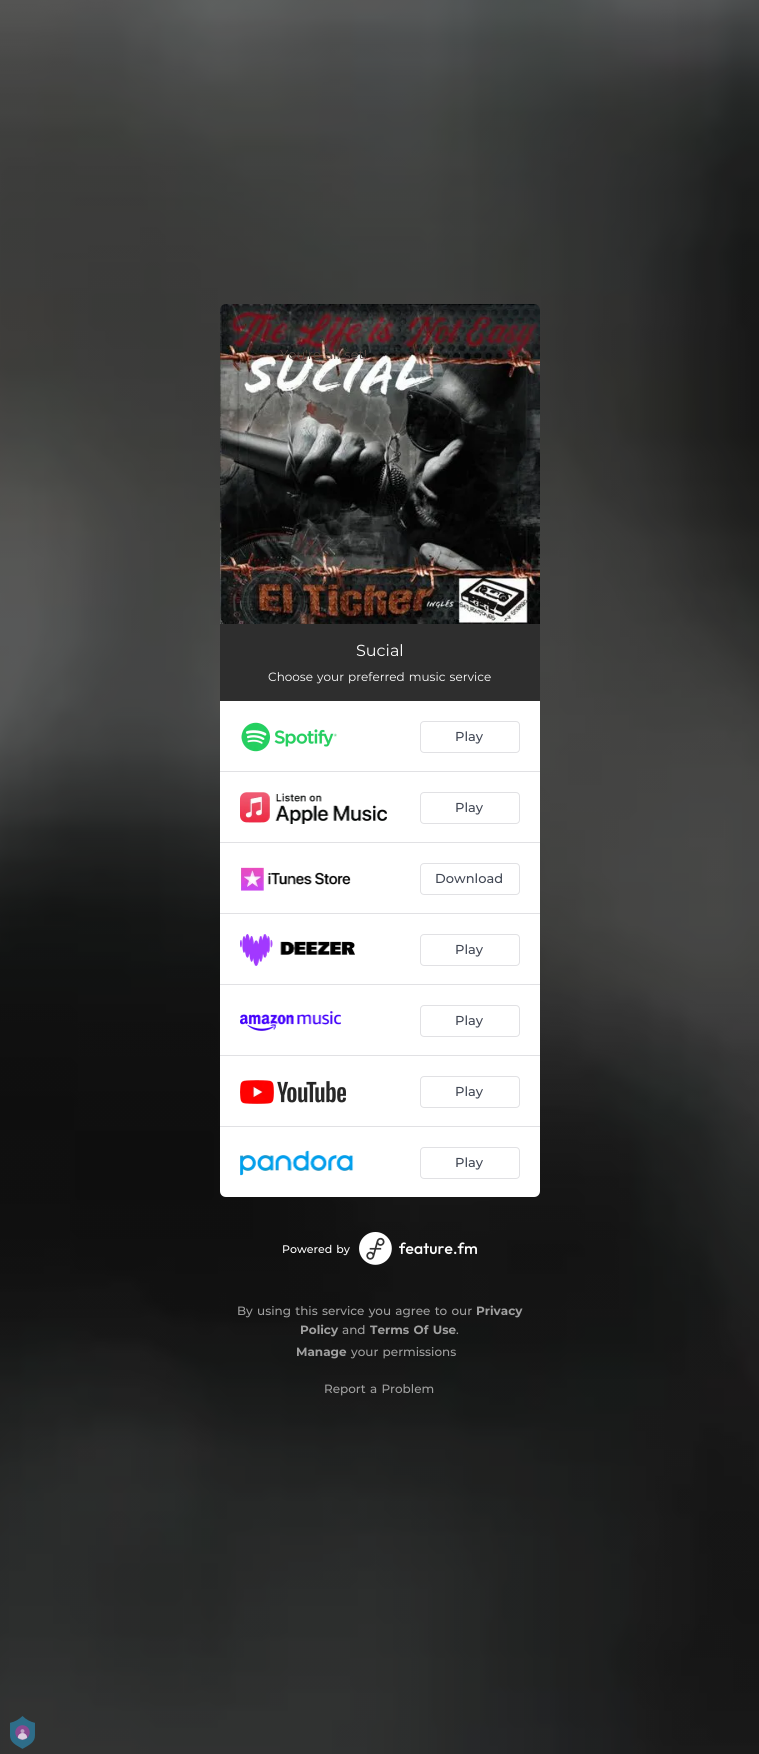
import math
import cairo

surface = cairo.ImageSurface(cairo.FORMAT_RGB24, 759, 1754)
ctx = cairo.Context(surface)
options = cairo.FontOptions()
options.set_hint_metrics(cairo.HINT_METRICS_OFF)
options.set_hint_style(cairo.HINT_STYLE_NONE)
ctx.set_font_options(options)
ctx.set_miter_limit(4)


def set_color(code):
    ctx.set_source_rgb(*(v / 255 for v in bytes.fromhex(code[-6:])))


def draw_text(x, y, s, family, size, color, bold=False, italic=False):
    ctx.select_font_face(family, cairo.FONT_SLANT_ITALIC if italic else cairo.FONT_SLANT_NORMAL, cairo.FONT_WEIGHT_BOLD if bold else cairo.FONT_WEIGHT_NORMAL)
    ctx.set_font_size(size)
    set_color(color)
    ctx.move_to(x, y)
    ctx.show_text(s)


def draw_spaced(x, y, s, letter, word):
    ctx.move_to(x, y)
    for ch in s:
        ctx.show_text(ch)
        ctx.rel_move_to(letter + word * (ch == ' '), 0)


def fill_rect(x, y, w, h, color):
    set_color(color)
    ctx.rectangle(x, y, w, h)
    ctx.fill()


def rounded_rect(x, y, w, h, r):
    ctx.new_sub_path()
    for i, (u, v) in enumerate([(x + w - r, y + h - r), (x + r, y + h - r), (x + r, y + r), (x + w - r, y + r)]):
        ctx.arc(u, v, r, i * math.pi / 2, (i + 1) * math.pi / 2)
    ctx.close_path()


def draw_image(path, x, y, w, h):
    ctx.save()
    ctx.set_source_surface(cairo.ImageSurface.create_from_png(path), x, y)
    ctx.rectangle(x, y, w, h)
    ctx.fill()
    ctx.restore()


set_color("#ffffff")
ctx.paint()
draw_image("assets/img1.png", 0, 0, 759, 1754)
draw_image("assets/img2.png", 220, 304, 320, 320)
ctx.select_font_face("Montserrat")
ctx.set_font_size(13)
set_color("#564944")
draw_spaced(280, 359, "You're all set!", 0, 1)
fill_rect(220, 624, 320, 77, "#2e2e2e")
draw_text(356, 656, "Sucial", "Montserrat", 16, "#ffffff")
ctx.set_font_size(12)
draw_spaced(268, 681, "Choose your preferred music service", 0, 1)
ctx.new_path()
ctx.move_to(220, 701)
ctx.line_to(540, 701)
ctx.line_to(540, 1191)
ctx.curve_to(540, 1194.5, 537.5, 1197, 534, 1197)
ctx.line_to(226, 1197)
ctx.curve_to(222.5, 1197, 220, 1194.5, 220, 1191)
ctx.close_path()
ctx.fill()
fill_rect(220, 771, 320, 1, "#e1e1e4")
draw_image("assets/img3.png", 241, 722, 96, 30)
rounded_rect(420.5, 721.5, 99, 31, 3.5)
ctx.set_line_width(1)
ctx.stroke()
draw_text(455, 741, "Play", "Montserrat Medium", 13, "#414754")
fill_rect(220, 842, 320, 1, "#e1e1e4")
draw_image("assets/img4.png", 240, 792, 147, 32)
rounded_rect(420.5, 792.5, 99, 31, 3.5)
ctx.stroke()
draw_text(455, 812, "Play", "Montserrat Medium", 13, "#414754")
fill_rect(220, 913, 320, 1, "#e1e1e4")
draw_image("assets/img5.png", 241, 867, 110, 24)
rounded_rect(420.5, 863.5, 99, 31, 3.5)
ctx.stroke()
draw_text(435, 883, "Download", "Montserrat Medium", 13, "#414754")
fill_rect(220, 984, 320, 1, "#e1e1e4")
draw_image("assets/img6.png", 240, 934, 115, 32)
rounded_rect(420.5, 934.5, 99, 31, 3.5)
ctx.stroke()
draw_text(455, 954, "Play", "Montserrat Medium", 13, "#414754")
fill_rect(220, 1055, 320, 1, "#e1e1e4")
draw_image("assets/img7.png", 240, 1011, 101, 20)
rounded_rect(420.5, 1005.5, 99, 31, 3.5)
ctx.stroke()
draw_text(455, 1025, "Play", "Montserrat Medium", 13, "#414754")
fill_rect(220, 1126, 320, 1, "#e1e1e4")
draw_image("assets/img8.png", 240, 1080, 106, 24)
rounded_rect(420.5, 1076.5, 99, 31, 3.5)
ctx.stroke()
draw_text(455, 1096, "Play", "Montserrat Medium", 13, "#414754")
draw_image("assets/img9.png", 240, 1150, 114, 26)
rounded_rect(420.5, 1147.5, 99, 31, 3.5)
set_color("#e1e1e4")
ctx.stroke()
draw_text(455, 1167, "Play", "Montserrat Medium", 13, "#414754")
ctx.set_font_size(11)
set_color("#ffffff")
draw_spaced(282, 1253, "Powered by", 0, 1)
draw_image("assets/img10.png", 359, 1232, 118, 33)
ctx.set_font_size(12)
set_color("#a0a0a0")
draw_spaced(237, 1315, "By using this service you agree to our", 0, 1)
draw_text(476, 1315, "Privacy", "Montserrat", 12, "#a0a0a0", bold=True)
draw_text(300, 1334, "Policy", "Montserrat", 12, "#a0a0a0", bold=True)
draw_text(342, 1334, "and", "Montserrat Medium", 12, "#a0a0a0")
ctx.select_font_face("Montserrat", cairo.FONT_SLANT_NORMAL, cairo.FONT_WEIGHT_BOLD)
draw_spaced(370, 1334, "Terms Of Use", 0, 1)
draw_text(456, 1334, ".", "Montserrat Medium", 12, "#a0a0a0")
draw_text(296, 1356, "Manage", "Montserrat", 12, "#a0a0a0", bold=True)
ctx.select_font_face("Montserrat Medium")
draw_spaced(351, 1356, "your permissions", 0, 1)
draw_spaced(324, 1393, "Report a Problem", 0, 1)
draw_image("assets/img11.png", 10, 1716, 25, 33)
surface.write_to_png("output.png")
